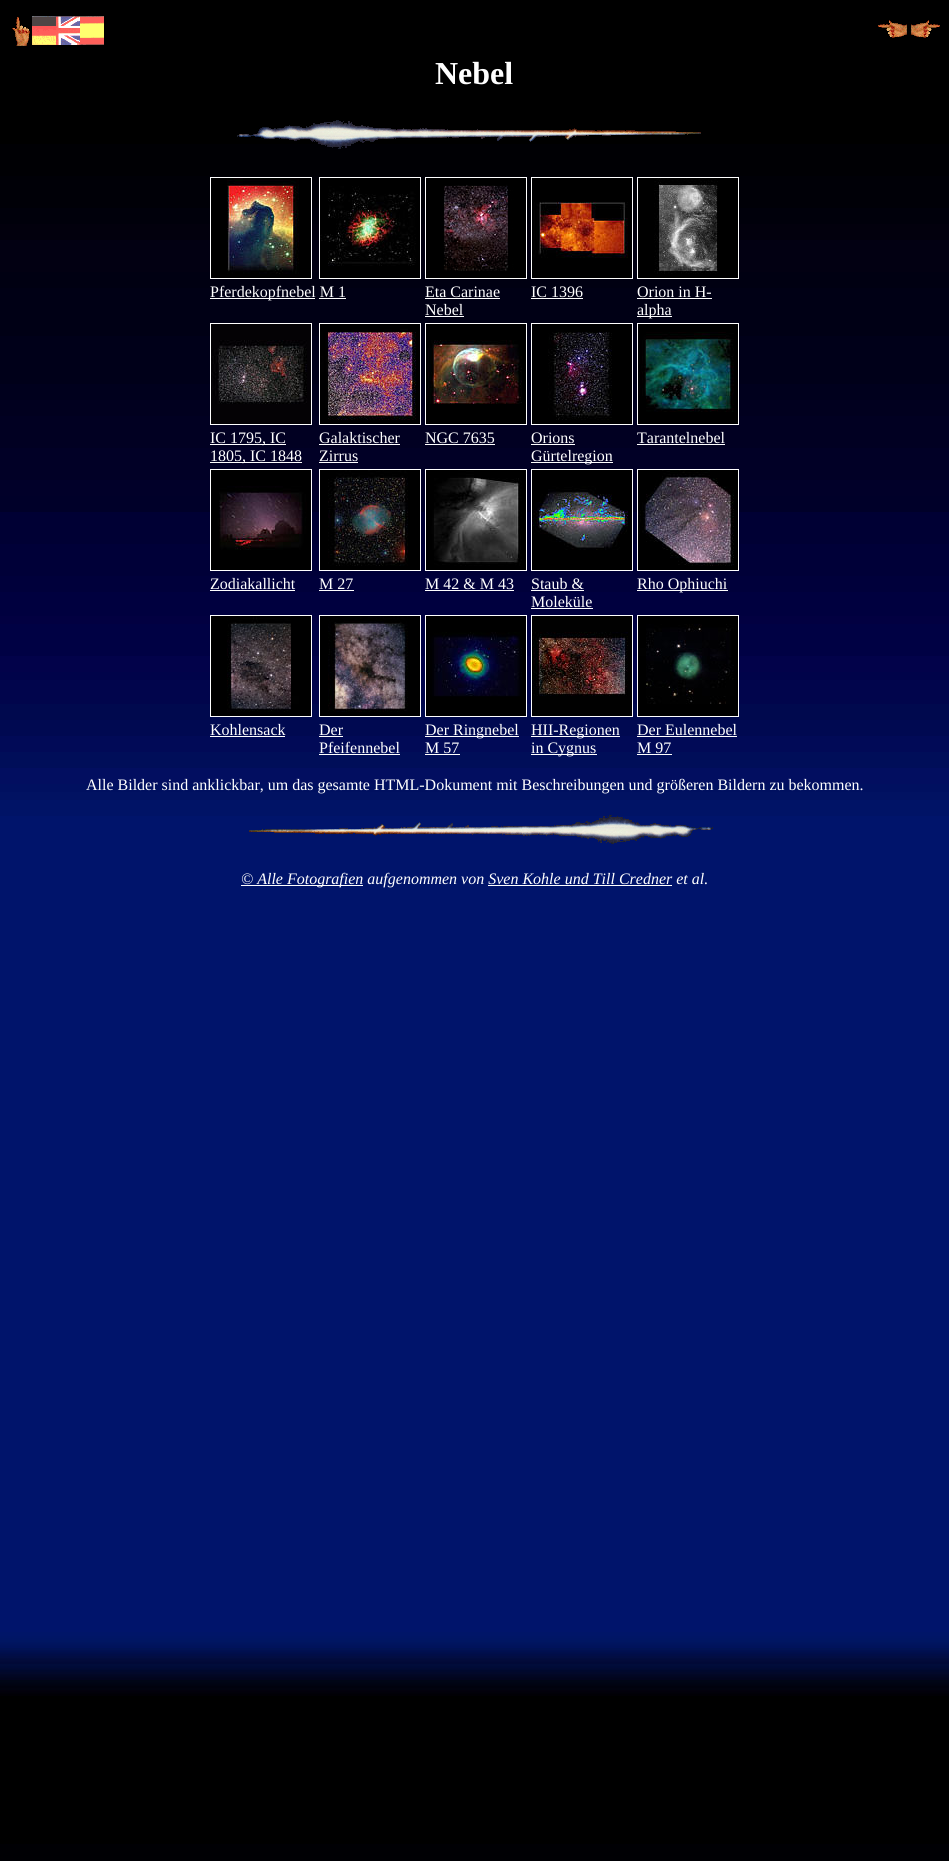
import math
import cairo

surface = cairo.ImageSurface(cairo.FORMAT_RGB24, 949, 1861)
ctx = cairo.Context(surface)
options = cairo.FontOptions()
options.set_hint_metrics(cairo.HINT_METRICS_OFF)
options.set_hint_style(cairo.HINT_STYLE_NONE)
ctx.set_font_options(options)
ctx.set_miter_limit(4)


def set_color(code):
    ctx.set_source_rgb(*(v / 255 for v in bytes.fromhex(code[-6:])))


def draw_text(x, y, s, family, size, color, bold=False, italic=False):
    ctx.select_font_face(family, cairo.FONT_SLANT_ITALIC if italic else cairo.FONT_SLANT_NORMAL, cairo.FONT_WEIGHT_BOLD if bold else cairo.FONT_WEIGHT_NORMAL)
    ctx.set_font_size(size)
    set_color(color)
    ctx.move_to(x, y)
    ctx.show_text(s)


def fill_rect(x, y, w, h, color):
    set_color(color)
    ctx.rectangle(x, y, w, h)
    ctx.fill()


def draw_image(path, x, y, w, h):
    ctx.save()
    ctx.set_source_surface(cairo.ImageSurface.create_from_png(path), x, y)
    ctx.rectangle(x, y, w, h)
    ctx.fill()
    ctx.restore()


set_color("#ffffff")
ctx.paint()
draw_image("assets/img1.png", 0, 0, 949, 1861)
draw_image("assets/img2.png", 12, 17, 18, 29)
draw_image("assets/img3.png", 32, 16, 72, 29)
draw_image("assets/img4.png", 878, 20, 29, 18)
draw_image("assets/img5.png", 911, 20, 29, 18)
draw_text(435, 84, "Nebel", "Liberation Serif", 32, "#ffffff", bold=True)
draw_image("assets/img6.png", 237, 120, 464, 29)
ctx.rectangle(210.5, 177.5, 101, 101)
ctx.set_line_width(1)
ctx.stroke()
draw_image("assets/img7.png", 211, 178, 100, 100)
fill_rect(210, 298, 105, 1, "#ffffff")
draw_text(210, 297, "Pferdekopfnebel M 1", "Liberation Serif", 16, "#ffffff")
ctx.rectangle(319.5, 177.5, 101, 101)
ctx.stroke()
draw_image("assets/img8.png", 320, 178, 100, 100)
fill_rect(319, 298, 27, 1, "#ffffff")
ctx.rectangle(425.5, 177.5, 101, 101)
ctx.stroke()
draw_image("assets/img9.png", 426, 178, 100, 100)
draw_text(425, 297, "Eta Carinae", "Liberation Serif", 16, "#ffffff")
fill_rect(425, 298, 75, 1, "#ffffff")
draw_text(425, 315, "Nebel", "Liberation Serif", 16, "#ffffff")
fill_rect(425, 316, 39, 1, "#ffffff")
ctx.rectangle(531.5, 177.5, 101, 101)
ctx.stroke()
draw_image("assets/img10.png", 532, 178, 100, 100)
draw_text(531, 297, "IC 1396", "Liberation Serif", 16, "#ffffff")
fill_rect(531, 298, 52, 1, "#ffffff")
ctx.rectangle(637.5, 177.5, 101, 101)
ctx.stroke()
draw_image("assets/img11.png", 638, 178, 100, 100)
draw_text(637, 297, "Orion in H-", "Liberation Serif", 16, "#ffffff")
fill_rect(637, 298, 75, 1, "#ffffff")
fill_rect(637, 316, 35, 1, "#ffffff")
draw_text(637, 315, "alpha", "Liberation Serif", 16, "#ffffff")
ctx.rectangle(210.5, 323.5, 101, 101)
ctx.stroke()
draw_image("assets/img12.png", 211, 324, 100, 100)
fill_rect(210, 444, 76, 1, "#ffffff")
draw_text(210, 443, "IC 1795, IC", "Liberation Serif", 16, "#ffffff")
fill_rect(210, 462, 92, 1, "#ffffff")
draw_text(210, 461, "1805, IC 1848", "Liberation Serif", 16, "#ffffff")
ctx.rectangle(319.5, 323.5, 101, 101)
ctx.stroke()
draw_image("assets/img13.png", 320, 324, 100, 100)
draw_text(319, 443, "Galaktischer", "Liberation Serif", 16, "#ffffff")
fill_rect(319, 444, 81, 1, "#ffffff")
draw_text(319, 461, "Zirrus", "Liberation Serif", 16, "#ffffff")
fill_rect(319, 462, 39, 1, "#ffffff")
ctx.rectangle(425.5, 323.5, 101, 101)
ctx.stroke()
draw_image("assets/img14.png", 426, 324, 100, 100)
draw_text(425, 443, "NGC 7635", "Liberation Serif", 16, "#ffffff")
fill_rect(425, 444, 70, 1, "#ffffff")
ctx.rectangle(531.5, 323.5, 101, 101)
ctx.stroke()
draw_image("assets/img15.png", 532, 324, 100, 100)
draw_text(531, 443, "Orions", "Liberation Serif", 16, "#ffffff")
fill_rect(531, 444, 44, 1, "#ffffff")
fill_rect(531, 462, 82, 1, "#ffffff")
draw_text(531, 461, "Gürtelregion", "Liberation Serif", 16, "#ffffff")
ctx.rectangle(637.5, 323.5, 101, 101)
ctx.stroke()
draw_image("assets/img16.png", 638, 324, 100, 100)
draw_text(637, 443, "Tarantelnebel", "Liberation Serif", 16, "#ffffff")
fill_rect(637, 444, 88, 1, "#ffffff")
ctx.rectangle(210.5, 469.5, 101, 101)
ctx.stroke()
draw_image("assets/img17.png", 211, 470, 100, 100)
draw_text(210, 589, "Zodiakallicht", "Liberation Serif", 16, "#ffffff")
fill_rect(210, 590, 85, 1, "#ffffff")
ctx.rectangle(319.5, 469.5, 101, 101)
ctx.stroke()
draw_image("assets/img18.png", 320, 470, 100, 100)
draw_text(319, 589, "M 27", "Liberation Serif", 16, "#ffffff")
fill_rect(319, 590, 35, 1, "#ffffff")
ctx.rectangle(425.5, 469.5, 101, 101)
ctx.stroke()
draw_image("assets/img19.png", 426, 470, 100, 100)
draw_text(425, 589, "M 42 & M 43", "Liberation Serif", 16, "#ffffff")
fill_rect(425, 590, 89, 1, "#ffffff")
ctx.rectangle(531.5, 469.5, 101, 101)
ctx.stroke()
draw_image("assets/img20.png", 532, 470, 100, 100)
draw_text(531, 589, "Staub &", "Liberation Serif", 16, "#ffffff")
fill_rect(531, 590, 53, 1, "#ffffff")
draw_text(531, 607, "Moleküle", "Liberation Serif", 16, "#ffffff")
fill_rect(531, 608, 62, 1, "#ffffff")
ctx.rectangle(637.5, 469.5, 101, 101)
ctx.stroke()
draw_image("assets/img21.png", 638, 470, 100, 100)
fill_rect(637, 590, 91, 1, "#ffffff")
draw_text(637, 589, "Rho Ophiuchi", "Liberation Serif", 16, "#ffffff")
ctx.rectangle(210.5, 615.5, 101, 101)
ctx.stroke()
draw_image("assets/img22.png", 211, 616, 100, 100)
draw_text(210, 735, "Kohlensack", "Liberation Serif", 16, "#ffffff")
fill_rect(210, 736, 75, 1, "#ffffff")
ctx.rectangle(319.5, 615.5, 101, 101)
ctx.stroke()
draw_image("assets/img23.png", 320, 616, 100, 100)
draw_text(319, 735, "Der", "Liberation Serif", 16, "#ffffff")
fill_rect(319, 736, 24, 1, "#ffffff")
draw_text(319, 753, "Pfeifennebel", "Liberation Serif", 16, "#ffffff")
fill_rect(319, 754, 81, 1, "#ffffff")
ctx.rectangle(425.5, 615.5, 101, 101)
ctx.stroke()
draw_image("assets/img24.png", 426, 616, 100, 100)
fill_rect(425, 736, 94, 1, "#ffffff")
draw_text(425, 735, "Der Ringnebel", "Liberation Serif", 16, "#ffffff")
draw_text(425, 753, "M 57", "Liberation Serif", 16, "#ffffff")
fill_rect(425, 754, 35, 1, "#ffffff")
ctx.rectangle(531.5, 615.5, 101, 101)
ctx.stroke()
draw_image("assets/img25.png", 532, 616, 100, 100)
fill_rect(531, 736, 89, 1, "#ffffff")
draw_text(531, 735, "HII-Regionen", "Liberation Serif", 16, "#ffffff")
fill_rect(531, 754, 66, 1, "#ffffff")
draw_text(531, 753, "in Cygnus", "Liberation Serif", 16, "#ffffff")
ctx.rectangle(637.5, 615.5, 101, 101)
ctx.stroke()
draw_image("assets/img26.png", 638, 616, 100, 100)
draw_text(637, 735, "Der Eulennebel", "Liberation Serif", 16, "#ffffff")
fill_rect(637, 736, 100, 1, "#ffffff")
draw_text(637, 753, "M 97", "Liberation Serif", 16, "#ffffff")
fill_rect(637, 754, 35, 1, "#ffffff")
draw_text(86, 790, "Alle Bilder sind anklickbar, um das gesamte HTML-Dokument mit Beschreibungen und größeren Bildern zu bekommen.", "Liberation Serif", 16, "#ffffff")
draw_image("assets/img27.png", 249, 815, 464, 29)
fill_rect(241, 885, 122, 1, "#ffffff")
draw_text(241, 884, "© Alle Fotografien aufgenommen von Sven Kohle und Till Credner et al.", "Liberation Serif", 16, "#ffffff", italic=True)
fill_rect(488, 885, 184, 1, "#ffffff")
surface.write_to_png("output.png")
